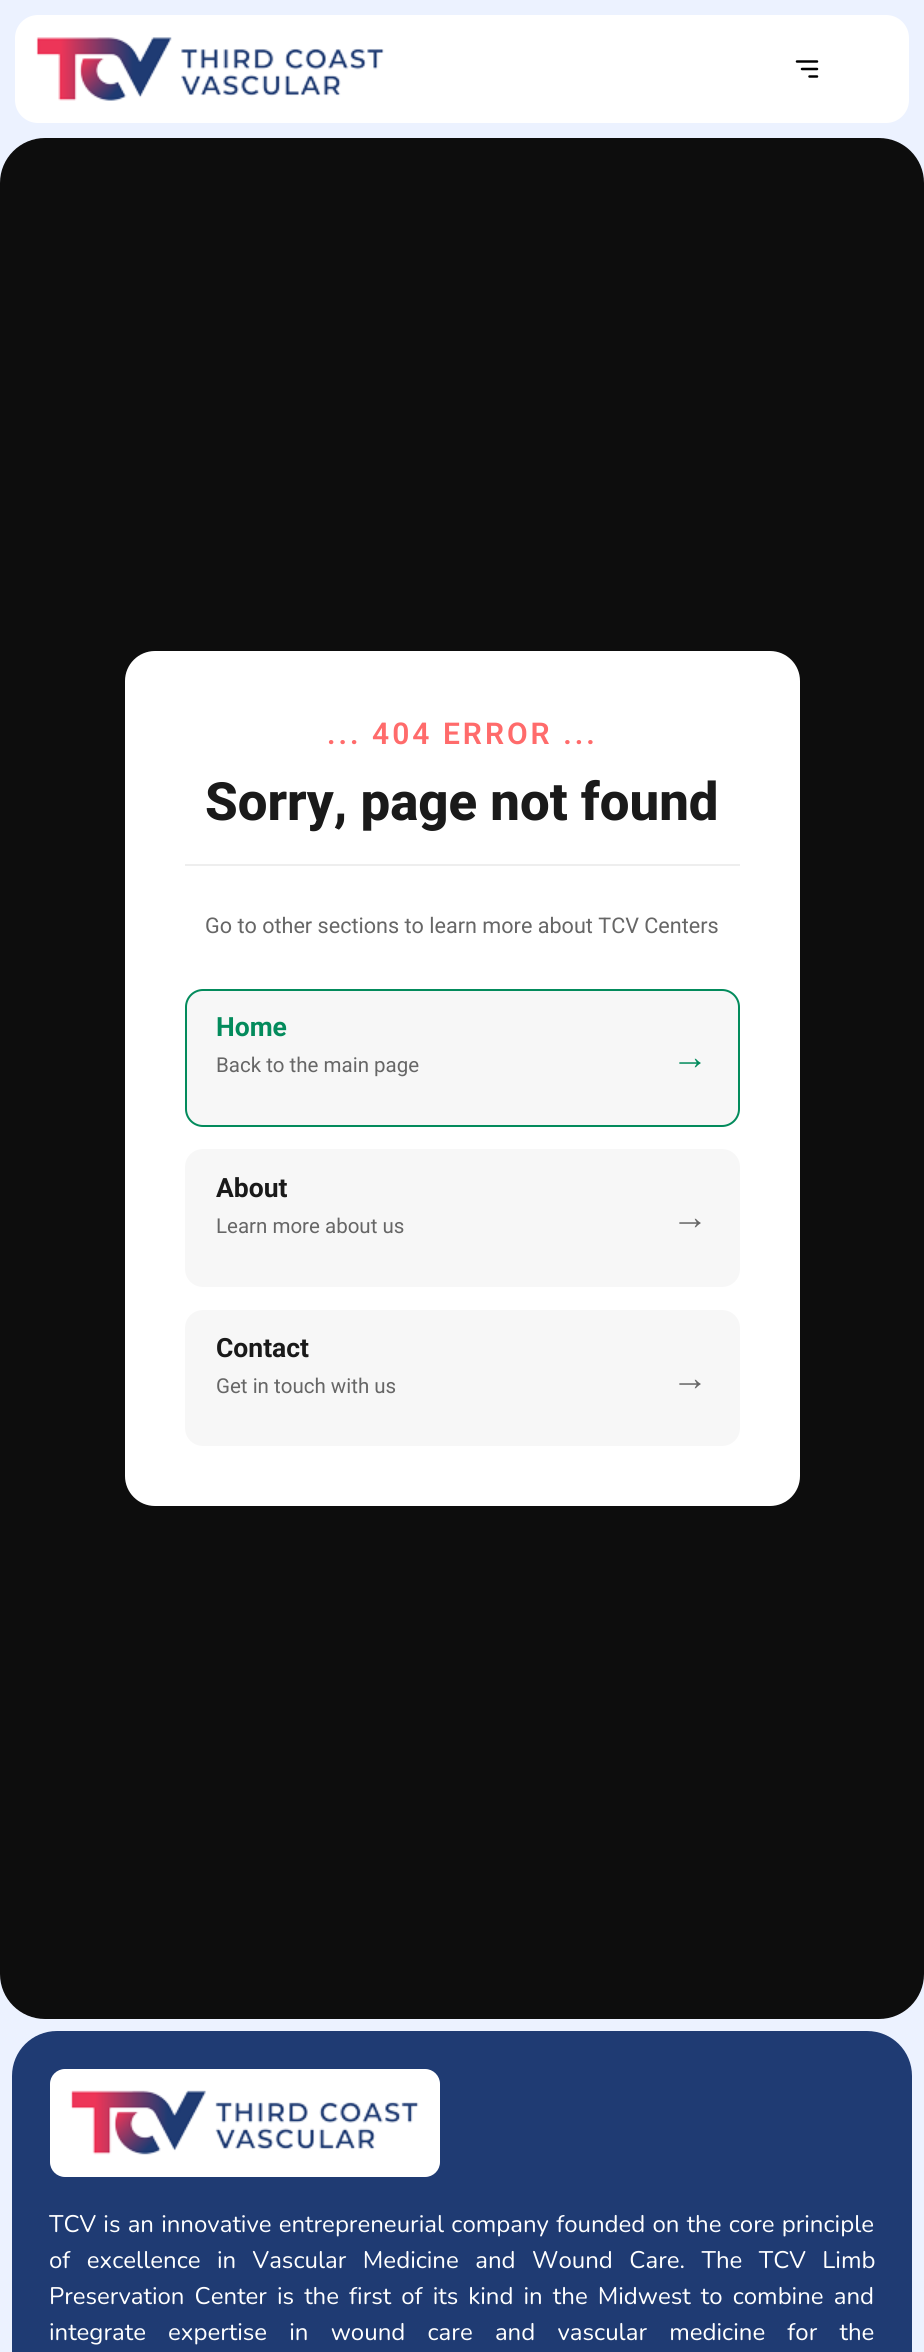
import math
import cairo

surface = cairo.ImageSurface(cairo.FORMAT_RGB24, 924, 2352)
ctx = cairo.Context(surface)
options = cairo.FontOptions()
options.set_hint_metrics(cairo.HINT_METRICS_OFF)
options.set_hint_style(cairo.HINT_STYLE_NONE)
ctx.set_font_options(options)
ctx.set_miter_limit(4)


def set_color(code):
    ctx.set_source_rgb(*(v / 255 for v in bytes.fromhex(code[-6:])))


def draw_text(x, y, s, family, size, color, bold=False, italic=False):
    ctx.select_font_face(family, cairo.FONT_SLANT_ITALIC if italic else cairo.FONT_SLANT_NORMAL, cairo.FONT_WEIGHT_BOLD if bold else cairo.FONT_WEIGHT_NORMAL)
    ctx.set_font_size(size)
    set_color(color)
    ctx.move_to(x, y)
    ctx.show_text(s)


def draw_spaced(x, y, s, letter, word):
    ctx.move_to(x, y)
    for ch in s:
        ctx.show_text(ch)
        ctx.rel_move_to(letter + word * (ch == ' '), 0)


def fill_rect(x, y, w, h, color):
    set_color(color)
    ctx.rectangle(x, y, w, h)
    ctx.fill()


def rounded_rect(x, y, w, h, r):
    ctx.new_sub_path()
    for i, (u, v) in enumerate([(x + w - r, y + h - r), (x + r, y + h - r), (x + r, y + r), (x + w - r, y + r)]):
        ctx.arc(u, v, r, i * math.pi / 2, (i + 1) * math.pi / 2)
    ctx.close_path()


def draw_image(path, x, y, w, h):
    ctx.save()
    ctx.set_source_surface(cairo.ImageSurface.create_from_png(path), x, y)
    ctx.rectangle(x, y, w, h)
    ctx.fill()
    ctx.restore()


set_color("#ecf2ff")
ctx.paint()
set_color("#ffffff")
rounded_rect(15, 15, 894, 108, 23)
ctx.fill()
draw_image("assets/img1.png", 36, 37, 349, 64)
draw_image("assets/img2.png", 795, 60, 24, 18)
set_color("#0d0d0d")
rounded_rect(0, 138, 924, 1881, 45)
ctx.fill()
set_color("#ffffff")
rounded_rect(125, 651, 675, 855, 30)
ctx.fill()
fill_rect(185, 864, 555, 2, "#eeeeee")
ctx.select_font_face("Roboto SemiBold")
ctx.set_font_size(30)
set_color("#ff6b6b")
draw_spaced(327, 744, "... 404 ERROR ...", 3, 0)
draw_text(205, 820, "Sorry, page not found", "Roboto ExtraBold", 52.75, "#1a1a1a")
draw_text(205, 933, "Go to other sections to learn more about TCV Centers", "Roboto", 21.6, "#666666")
set_color("#f7f7f7")
rounded_rect(186, 990, 553, 136, 17)
ctx.fill_preserve()
set_color("#038b5c")
ctx.stroke()
draw_text(216, 1036, "Home", "Roboto", 26.5, "#038b5c", bold=True)
draw_text(216, 1072, "Back to the main page", "Roboto", 20.5, "#666666")
draw_text(672, 1069, "→", "Liberation Sans", 36, "#038b5c", bold=True)
set_color("#f7f7f7")
rounded_rect(185, 1149, 555, 138, 18)
ctx.fill()
draw_text(216, 1197, "About", "Roboto", 26.5, "#1a1a1a", bold=True)
draw_text(216, 1233, "Learn more about us", "Roboto", 20.5, "#666666")
draw_text(672, 1229, "→", "Liberation Sans", 36, "#666666", bold=True)
set_color("#f7f7f7")
rounded_rect(185, 1310, 555, 136, 18)
ctx.fill()
draw_text(216, 1357, "Contact", "Roboto", 26.5, "#1a1a1a", bold=True)
draw_text(216, 1393, "Get in touch with us", "Roboto", 20.5, "#666666")
draw_text(672, 1390, "→", "Liberation Sans", 36, "#666666", bold=True)
set_color("#1f3b73")
ctx.new_path()
ctx.move_to(57, 2031)
ctx.line_to(867, 2031)
ctx.curve_to(892, 2031, 912, 2051, 912, 2076)
ctx.line_to(912, 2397)
ctx.line_to(12, 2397)
ctx.line_to(12, 2076)
ctx.curve_to(12, 2051, 32, 2031, 57, 2031)
ctx.close_path()
ctx.fill()
set_color("#ffffff")
rounded_rect(50, 2069, 390, 108, 15)
ctx.fill()
draw_image("assets/img3.png", 70, 2090, 349, 65)
ctx.select_font_face("Nunito ExtraLight")
ctx.set_font_size(24)
draw_spaced(49, 2232, "TCV is an innovative entrepreneurial company founded on the core principle", 0, 1)
draw_spaced(49, 2268, "of excellence in Vascular Medicine and Wound Care. The TCV Limb", 0, 10.25)
draw_spaced(49, 2304, "Preservation Center is the first of its kind in the Midwest to combine and", 0, 3.9)
draw_spaced(49, 2340, "integrate expertise in wound care and vascular medicine for the", 0, 16)
surface.write_to_png("output.png")
